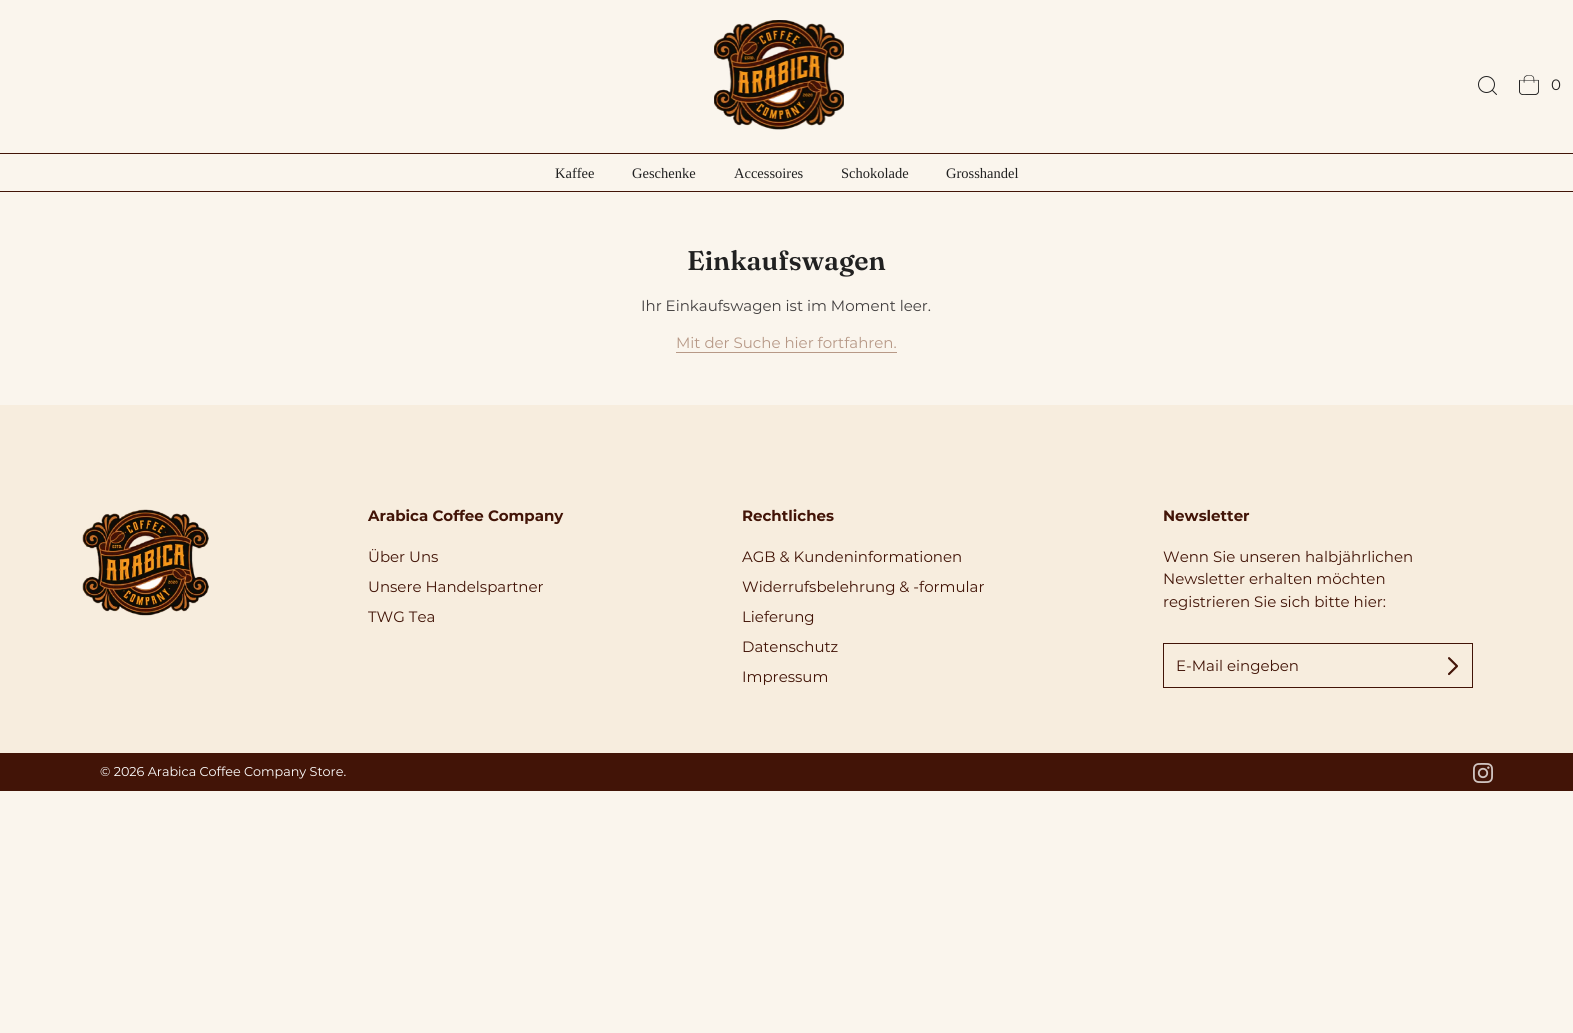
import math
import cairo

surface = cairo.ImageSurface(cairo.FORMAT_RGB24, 1573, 1033)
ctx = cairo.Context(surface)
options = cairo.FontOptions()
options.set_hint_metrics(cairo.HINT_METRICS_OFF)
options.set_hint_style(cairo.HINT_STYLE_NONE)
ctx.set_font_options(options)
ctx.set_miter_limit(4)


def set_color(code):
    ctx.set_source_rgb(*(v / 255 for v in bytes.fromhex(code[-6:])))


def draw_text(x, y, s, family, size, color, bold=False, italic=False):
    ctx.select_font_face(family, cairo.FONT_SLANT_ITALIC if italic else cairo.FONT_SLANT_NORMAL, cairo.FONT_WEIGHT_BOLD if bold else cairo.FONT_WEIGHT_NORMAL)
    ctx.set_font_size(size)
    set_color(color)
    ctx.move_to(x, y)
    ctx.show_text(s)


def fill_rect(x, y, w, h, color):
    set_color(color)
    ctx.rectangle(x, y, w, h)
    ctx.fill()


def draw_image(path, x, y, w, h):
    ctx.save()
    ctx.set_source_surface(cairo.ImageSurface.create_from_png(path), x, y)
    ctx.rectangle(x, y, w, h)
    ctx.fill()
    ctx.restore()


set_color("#faf5ed")
ctx.paint()
draw_image("assets/img1.png", 714, 20, 130, 110)
ctx.arc(1486.5, 84.5, 8, 0, 2 * math.pi)
set_color("#212121")
ctx.set_line_width(1)
ctx.stroke()
ctx.new_path()
ctx.move_to(1496.5, 94.5)
ctx.line_to(1492.5, 90.5)
ctx.set_line_cap(cairo.LINE_CAP_ROUND)
ctx.set_line_join(cairo.LINE_JOIN_ROUND)
ctx.stroke()
draw_image("assets/img2.png", 1519, 75, 20, 20)
draw_text(1551, 90, "0", "Montserrat", 15, "#212121")
fill_rect(0, 153, 1573, 1, "#421407")
fill_rect(0, 191, 1573, 1, "#421407")
draw_text(555, 178, "Kaffee", "Liberation Serif", 14.5, "#212121")
draw_text(632, 178, "Geschenke", "Liberation Serif", 14.5, "#212121")
draw_text(734, 178, "Accessoires", "Liberation Serif", 14.5, "#212121")
draw_text(841, 178, "Schokolade", "Liberation Serif", 14.5, "#212121")
draw_text(946, 178, "Grosshandel", "Liberation Serif", 14.5, "#212121")
draw_text(687, 270, "Einkaufswagen", "Fraunces SemiBold", 27, "#212121")
draw_text(641, 311, "Ihr Einkaufswagen ist im Moment leer.", "Montserrat", 15, "#423f3f")
draw_text(676, 348, "Mit der Suche hier fortfahren.", "Montserrat", 15, "#b79987")
fill_rect(676, 352, 221, 1, "#b79987")
fill_rect(0, 405, 1573, 348, "#f7edde")
draw_image("assets/img3.png", 82, 509, 127, 107)
draw_text(368, 521, "Arabica Coffee Company", "Montserrat", 15, "#421407", bold=True)
draw_text(368, 562, "Über Uns", "Montserrat", 15, "#421407")
draw_text(368, 592, "Unsere Handelspartner", "Montserrat", 15, "#421407")
draw_text(368, 622, "TWG Tea", "Montserrat", 15, "#421407")
draw_text(742, 521, "Rechtliches", "Montserrat", 15, "#421407", bold=True)
draw_text(742, 562, "AGB & Kundeninformationen", "Montserrat", 15, "#421407")
draw_text(742, 592, "Widerrufsbelehrung & -formular", "Montserrat", 15, "#421407")
draw_text(742, 622, "Lieferung", "Montserrat", 15, "#421407")
draw_text(742, 652, "Datenschutz", "Montserrat", 15, "#421407")
draw_text(742, 682, "Impressum", "Montserrat", 15, "#421407")
draw_text(1163, 521, "Newsletter", "Montserrat", 15, "#421407", bold=True)
draw_text(1163, 562, "Wenn Sie unseren halbjährlichen", "Montserrat", 15, "#421407")
draw_text(1163, 584, "Newsletter erhalten möchten", "Montserrat", 15, "#421407")
draw_text(1163, 607, "registrieren Sie sich bitte hier:", "Montserrat", 15, "#421407")
ctx.rectangle(1163.5, 643.5, 309, 44)
ctx.set_line_cap(cairo.LINE_CAP_BUTT)
ctx.set_line_join(cairo.LINE_JOIN_MITER)
ctx.stroke()
draw_text(1176, 671, "E-Mail eingeben", "Montserrat", 15, "#421407")
draw_image("assets/img4.png", 1448, 657, 10, 19)
fill_rect(0, 753, 1573, 38, "#421407")
draw_text(100, 776, "© 2026 Arabica Coffee Company Store.", "Montserrat", 12.75, "#ffffff")
draw_image("assets/img5.png", 1473, 763, 20, 20)
surface.write_to_png("output.png")
